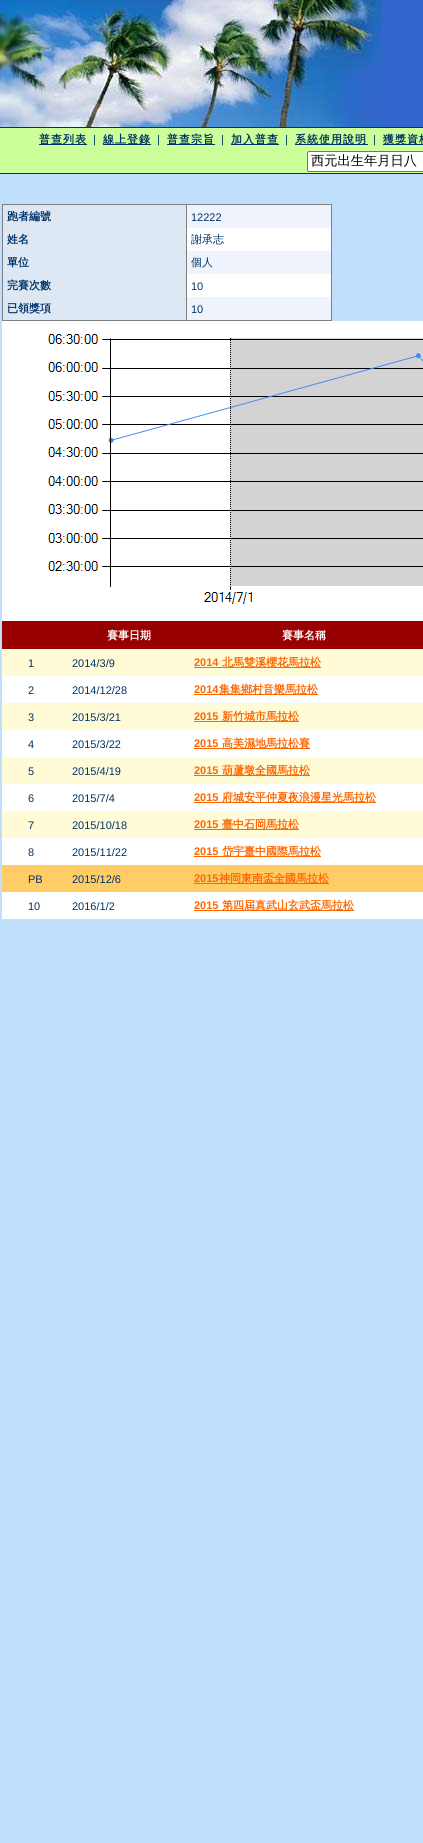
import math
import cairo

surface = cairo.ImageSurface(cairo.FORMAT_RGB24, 423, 1843)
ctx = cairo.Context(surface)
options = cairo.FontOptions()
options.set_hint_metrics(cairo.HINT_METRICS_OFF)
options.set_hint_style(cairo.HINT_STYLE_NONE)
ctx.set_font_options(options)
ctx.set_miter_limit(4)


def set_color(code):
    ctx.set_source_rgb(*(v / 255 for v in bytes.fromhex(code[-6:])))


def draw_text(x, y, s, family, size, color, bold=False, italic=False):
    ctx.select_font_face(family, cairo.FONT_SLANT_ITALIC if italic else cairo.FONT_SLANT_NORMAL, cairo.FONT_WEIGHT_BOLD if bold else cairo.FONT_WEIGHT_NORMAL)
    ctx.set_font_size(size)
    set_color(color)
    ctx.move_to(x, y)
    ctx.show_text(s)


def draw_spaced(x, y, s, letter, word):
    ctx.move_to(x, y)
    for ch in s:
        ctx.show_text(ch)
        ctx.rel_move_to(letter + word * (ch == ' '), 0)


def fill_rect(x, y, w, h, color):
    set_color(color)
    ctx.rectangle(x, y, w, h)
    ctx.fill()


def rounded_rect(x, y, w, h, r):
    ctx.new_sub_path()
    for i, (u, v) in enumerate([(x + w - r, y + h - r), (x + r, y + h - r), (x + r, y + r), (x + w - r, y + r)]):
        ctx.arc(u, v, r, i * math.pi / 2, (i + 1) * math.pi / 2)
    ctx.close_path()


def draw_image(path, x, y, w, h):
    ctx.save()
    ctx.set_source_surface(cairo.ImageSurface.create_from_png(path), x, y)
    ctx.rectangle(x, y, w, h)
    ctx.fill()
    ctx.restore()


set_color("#c0dffd")
ctx.paint()
fill_rect(382, 0, 41, 127, "#3366cc")
draw_image("assets/img1.png", 0, 0, 382, 127)
fill_rect(0, 127, 423, 1, "#003366")
fill_rect(0, 128, 423, 45, "#ccff99")
fill_rect(39, 144, 48, 1, "#003366")
ctx.select_font_face("WenQuanYi Zen Hei", cairo.FONT_SLANT_NORMAL, cairo.FONT_WEIGHT_BOLD)
ctx.set_font_size(11)
draw_spaced(39, 143, "普查列表", 1, 0)
ctx.select_font_face("Liberation Sans")
draw_spaced(93, 143, "|", 2, 0)
fill_rect(103, 144, 48, 1, "#003366")
ctx.select_font_face("WenQuanYi Zen Hei", cairo.FONT_SLANT_NORMAL, cairo.FONT_WEIGHT_BOLD)
draw_spaced(103, 143, "線上登錄", 1, 0)
ctx.select_font_face("Liberation Sans")
draw_spaced(157, 143, "|", 2, 0)
fill_rect(167, 144, 48, 1, "#003366")
ctx.select_font_face("WenQuanYi Zen Hei", cairo.FONT_SLANT_NORMAL, cairo.FONT_WEIGHT_BOLD)
draw_spaced(167, 143, "普查宗旨", 1, 0)
ctx.select_font_face("Liberation Sans")
draw_spaced(221, 143, "|", 2, 0)
fill_rect(231, 144, 48, 1, "#003366")
ctx.select_font_face("WenQuanYi Zen Hei", cairo.FONT_SLANT_NORMAL, cairo.FONT_WEIGHT_BOLD)
draw_spaced(231, 143, "加入普查", 1, 0)
ctx.select_font_face("Liberation Sans")
draw_spaced(285, 143, "|", 2, 0)
fill_rect(295, 144, 73, 1, "#003366")
ctx.select_font_face("WenQuanYi Zen Hei", cairo.FONT_SLANT_NORMAL, cairo.FONT_WEIGHT_BOLD)
draw_spaced(295, 143, "系統使用說明", 1, 0)
ctx.select_font_face("Liberation Sans")
draw_spaced(373, 143, "|", 2, 0)
fill_rect(383, 144, 40, 1, "#003366")
ctx.select_font_face("WenQuanYi Zen Hei", cairo.FONT_SLANT_NORMAL, cairo.FONT_WEIGHT_BOLD)
draw_spaced(383, 143, "獲獎資格", 1, 0)
set_color("#ffffff")
rounded_rect(307.5, 151.5, 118, 20, 1.5)
ctx.fill_preserve()
set_color("#767676")
ctx.set_line_width(1)
ctx.stroke()
draw_text(311, 165, "西元出生年月日八", "WenQuanYi Zen Hei Medium", 13.25, "#000000")
fill_rect(0, 173, 423, 1, "#003366")
fill_rect(2, 204, 330, 1, "#808080")
fill_rect(331, 204, 1, 117, "#808080")
fill_rect(2, 320, 330, 1, "#808080")
fill_rect(2, 204, 1, 117, "#808080")
fill_rect(187, 205, 144, 23, "#eff3fb")
fill_rect(3, 205, 183, 115, "#dee8f5")
draw_text(7, 220, "跑者編號", "WenQuanYi Zen Hei", 11, "#003366", bold=True)
draw_text(191, 221, "12222", "Liberation Sans", 11, "#003366")
fill_rect(187, 228, 144, 23, "#ffffff")
draw_text(7, 243, "姓名", "WenQuanYi Zen Hei", 11, "#003366", bold=True)
draw_text(191, 243, "謝承志", "WenQuanYi Zen Hei Medium", 11, "#003366")
fill_rect(187, 251, 144, 23, "#eff3fb")
draw_text(7, 266, "單位", "WenQuanYi Zen Hei", 11, "#003366", bold=True)
draw_text(191, 266, "個人", "WenQuanYi Zen Hei Medium", 11, "#003366")
fill_rect(187, 274, 144, 23, "#ffffff")
draw_text(7, 289, "完賽次數", "WenQuanYi Zen Hei", 11, "#003366", bold=True)
draw_text(191, 290, "10", "Liberation Sans", 11, "#003366")
fill_rect(187, 297, 144, 23, "#eff3fb")
draw_text(7, 312, "已領獎項", "WenQuanYi Zen Hei", 11, "#003366", bold=True)
fill_rect(186, 204, 1, 117, "#808080")
draw_text(191, 313, "10", "Liberation Sans", 11, "#003366")
draw_image("assets/img2.png", 2, 321, 421, 300)
fill_rect(2, 621, 421, 28, "#990000")
draw_text(107, 639, "賽事日期", "WenQuanYi Zen Hei", 11, "#ffffff", bold=True)
draw_text(282, 639, "賽事名稱", "WenQuanYi Zen Hei", 11, "#ffffff", bold=True)
fill_rect(2, 649, 421, 27, "#fffbd6")
draw_text(28, 667, "1", "Liberation Sans", 11, "#003366")
draw_text(72, 667, "2014/3/9", "Liberation Sans", 11, "#003366")
draw_text(194, 666, "2014", "Liberation Sans", 11, "#ff6600", bold=True)
fill_rect(194, 667, 127, 1, "#ff6600")
draw_text(222, 666, "北馬雙溪櫻花馬拉松", "WenQuanYi Zen Hei", 11, "#ff6600", bold=True)
fill_rect(2, 676, 421, 27, "#ffffff")
draw_text(28, 694, "2", "Liberation Sans", 11, "#003366")
draw_text(72, 694, "2014/12/28", "Liberation Sans", 11, "#003366")
draw_text(194, 693, "2014", "Liberation Sans", 11, "#ff6600", bold=True)
fill_rect(194, 694, 124, 1, "#ff6600")
draw_text(219, 693, "集集鄉村音樂馬拉松", "WenQuanYi Zen Hei", 11, "#ff6600", bold=True)
fill_rect(2, 703, 421, 27, "#fffbd6")
draw_text(28, 721, "3", "Liberation Sans", 11, "#003366")
draw_text(72, 721, "2015/3/21", "Liberation Sans", 11, "#003366")
draw_text(194, 720, "2015", "Liberation Sans", 11, "#ff6600", bold=True)
fill_rect(194, 721, 105, 1, "#ff6600")
draw_text(222, 720, "新竹城市馬拉松", "WenQuanYi Zen Hei", 11, "#ff6600", bold=True)
fill_rect(2, 730, 421, 27, "#ffffff")
draw_text(28, 748, "4", "Liberation Sans", 11, "#003366")
draw_text(72, 748, "2015/3/22", "Liberation Sans", 11, "#003366")
draw_text(194, 747, "2015", "Liberation Sans", 11, "#ff6600", bold=True)
fill_rect(194, 748, 116, 1, "#ff6600")
draw_text(222, 747, "高美濕地馬拉松賽", "WenQuanYi Zen Hei", 11, "#ff6600", bold=True)
fill_rect(2, 757, 421, 27, "#fffbd6")
draw_text(28, 775, "5", "Liberation Sans", 11, "#003366")
draw_text(72, 775, "2015/4/19", "Liberation Sans", 11, "#003366")
draw_text(194, 774, "2015", "Liberation Sans", 11, "#ff6600", bold=True)
fill_rect(194, 775, 116, 1, "#ff6600")
draw_text(222, 774, "葫蘆墩全國馬拉松", "WenQuanYi Zen Hei", 11, "#ff6600", bold=True)
fill_rect(2, 784, 421, 27, "#ffffff")
draw_text(28, 802, "6", "Liberation Sans", 11, "#003366")
draw_text(72, 802, "2015/7/4", "Liberation Sans", 11, "#003366")
draw_text(194, 801, "2015", "Liberation Sans", 11, "#ff6600", bold=True)
fill_rect(194, 802, 182, 1, "#ff6600")
draw_text(222, 801, "府城安平仲夏夜浪漫星光馬拉松", "WenQuanYi Zen Hei", 11, "#ff6600", bold=True)
fill_rect(2, 811, 421, 27, "#fffbd6")
draw_text(28, 829, "7", "Liberation Sans", 11, "#003366")
draw_text(72, 829, "2015/10/18", "Liberation Sans", 11, "#003366")
draw_text(194, 828, "2015", "Liberation Sans", 11, "#ff6600", bold=True)
fill_rect(194, 829, 105, 1, "#ff6600")
draw_text(222, 828, "臺中石岡馬拉松", "WenQuanYi Zen Hei", 11, "#ff6600", bold=True)
fill_rect(2, 838, 421, 27, "#ffffff")
draw_text(28, 856, "8", "Liberation Sans", 11, "#003366")
draw_text(72, 856, "2015/11/22", "Liberation Sans", 11, "#003366")
draw_text(194, 855, "2015", "Liberation Sans", 11, "#ff6600", bold=True)
fill_rect(194, 856, 127, 1, "#ff6600")
draw_text(222, 855, "岱宇臺中國際馬拉松", "WenQuanYi Zen Hei", 11, "#ff6600", bold=True)
fill_rect(2, 865, 421, 27, "#ffcc66")
draw_text(28, 883, "PB", "Liberation Sans", 11, "#003366")
draw_text(72, 883, "2015/12/6", "Liberation Sans", 11, "#003366")
draw_text(194, 882, "2015", "Liberation Sans", 11, "#ff6600", bold=True)
fill_rect(194, 883, 135, 1, "#ff6600")
draw_text(219, 882, "神岡東南盃全國馬拉松", "WenQuanYi Zen Hei", 11, "#ff6600", bold=True)
fill_rect(2, 892, 421, 27, "#ffffff")
draw_text(28, 910, "10", "Liberation Sans", 11, "#003366")
draw_text(72, 910, "2016/1/2", "Liberation Sans", 11, "#003366")
draw_text(194, 909, "2015", "Liberation Sans", 11, "#ff6600", bold=True)
fill_rect(194, 910, 160, 1, "#ff6600")
draw_text(222, 909, "第四屆真武山玄武盃馬拉松", "WenQuanYi Zen Hei", 11, "#ff6600", bold=True)
surface.write_to_png("output.png")
